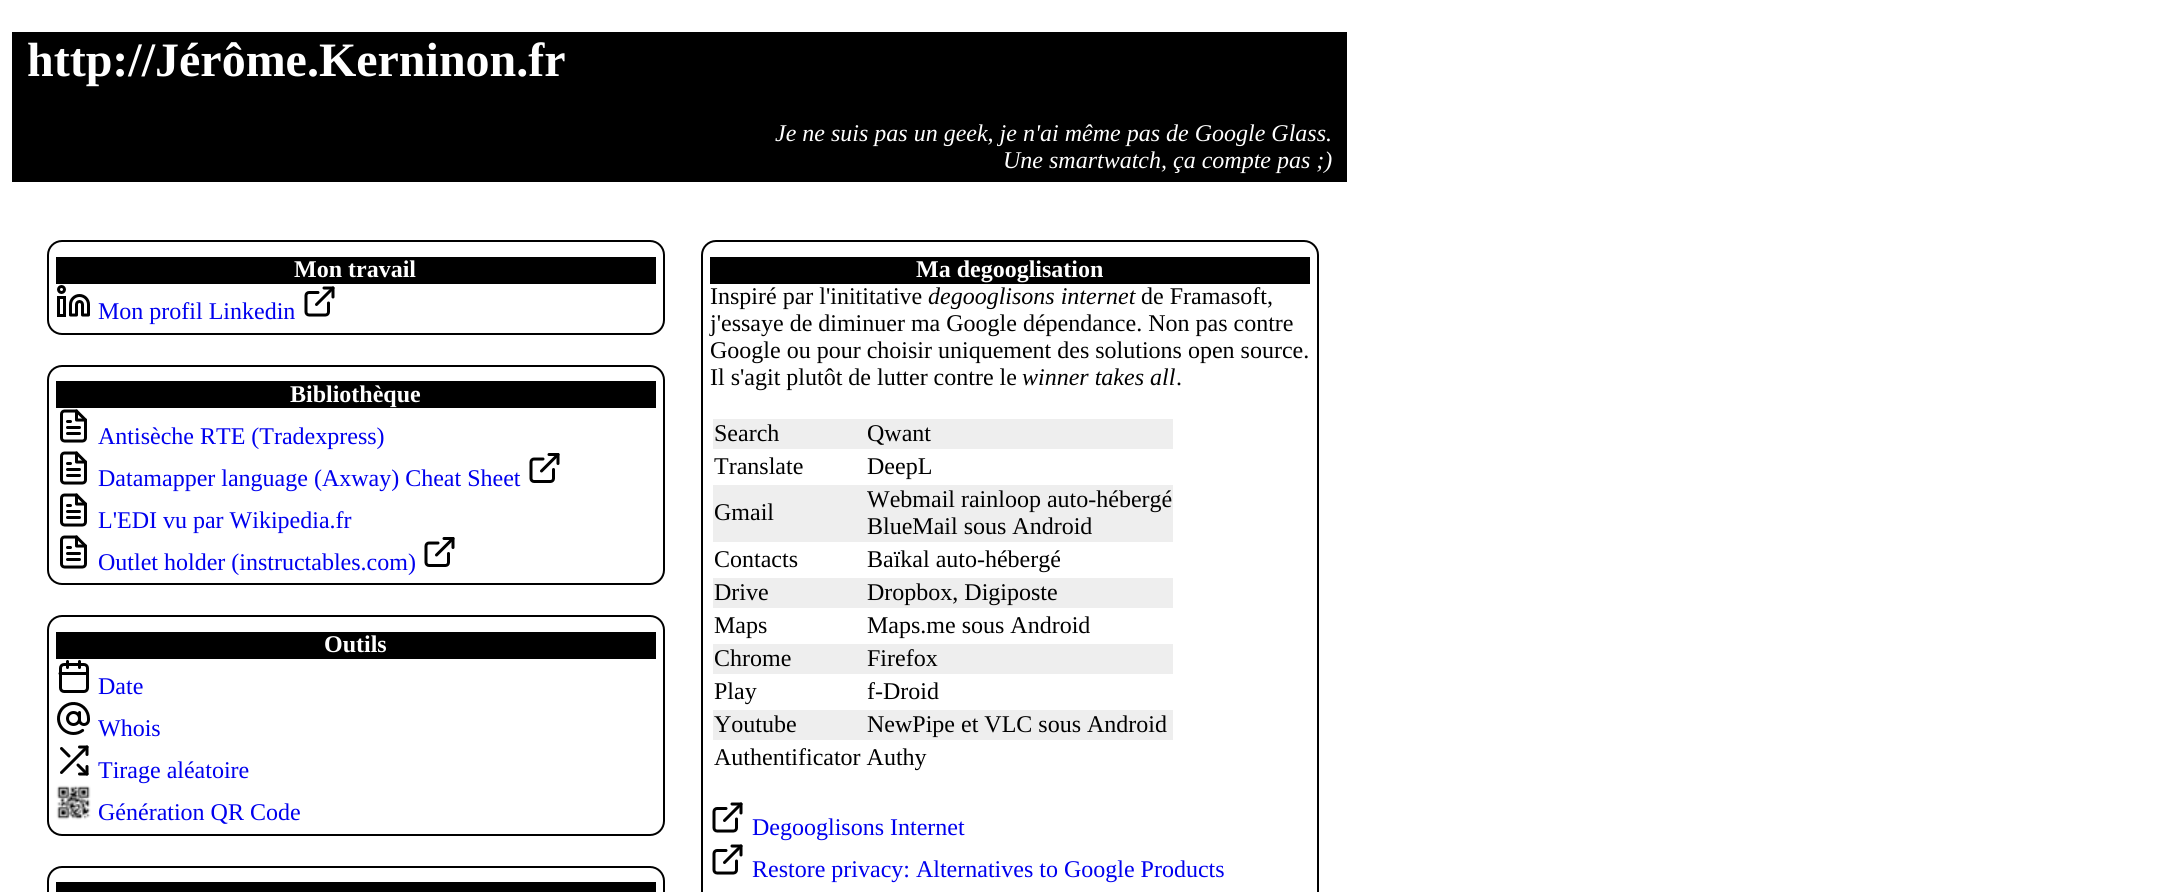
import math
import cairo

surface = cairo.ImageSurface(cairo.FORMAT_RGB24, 2171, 892)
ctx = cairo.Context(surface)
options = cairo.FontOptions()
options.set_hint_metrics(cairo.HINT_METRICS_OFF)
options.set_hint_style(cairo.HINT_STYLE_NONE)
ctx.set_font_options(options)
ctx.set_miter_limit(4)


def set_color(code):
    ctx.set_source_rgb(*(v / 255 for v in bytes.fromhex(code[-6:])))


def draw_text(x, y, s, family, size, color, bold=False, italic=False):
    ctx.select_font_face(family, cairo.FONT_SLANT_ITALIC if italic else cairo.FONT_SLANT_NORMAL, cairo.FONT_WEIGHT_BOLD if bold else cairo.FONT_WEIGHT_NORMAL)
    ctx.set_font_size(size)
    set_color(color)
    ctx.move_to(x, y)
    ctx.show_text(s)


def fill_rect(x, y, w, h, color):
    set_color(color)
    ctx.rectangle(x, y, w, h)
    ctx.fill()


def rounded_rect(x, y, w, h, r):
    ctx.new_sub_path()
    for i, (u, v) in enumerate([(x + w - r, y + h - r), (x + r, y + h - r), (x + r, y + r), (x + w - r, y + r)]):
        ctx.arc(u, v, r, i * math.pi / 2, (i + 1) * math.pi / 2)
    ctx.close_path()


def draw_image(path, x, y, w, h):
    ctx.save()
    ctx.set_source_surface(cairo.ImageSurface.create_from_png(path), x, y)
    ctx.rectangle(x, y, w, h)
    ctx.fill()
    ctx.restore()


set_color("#ffffff")
ctx.paint()
fill_rect(12, 32, 1335, 150, "#000000")
draw_text(27, 76, "http://Jérôme.Kerninon.fr", "Liberation Serif", 48, "#ffffff", bold=True)
draw_text(775, 141, "Je ne suis pas un geek, je n'ai même pas de Google Glass.", "Liberation Serif", 24, "#ffffff", italic=True)
draw_text(1003, 168, "Une smartwatch, ça compte pas ;)", "Liberation Serif", 24, "#ffffff", italic=True)
rounded_rect(48, 241, 616, 93, 14)
set_color("#000000")
ctx.stroke()
fill_rect(56, 257, 600, 27, "#000000")
draw_text(294, 277, "Mon travail", "Liberation Serif", 24, "#ffffff", bold=True)
draw_image("assets/img1.png", 57, 285, 33, 32)
draw_text(98, 319, "Mon profil Linkedin", "Liberation Serif", 24, "#0000ee")
draw_image("assets/img2.png", 304, 286, 31, 31)
rounded_rect(48, 366, 616, 218, 14)
set_color("#000000")
ctx.stroke()
fill_rect(56, 381, 600, 27, "#000000")
draw_text(290, 402, "Bibliothèque", "Liberation Serif", 24, "#ffffff", bold=True)
draw_image("assets/img3.png", 60, 409, 27, 34)
draw_text(98, 444, "Antisèche RTE (Tradexpress)", "Liberation Serif", 24, "#0000ee")
draw_image("assets/img3.png", 60, 451, 27, 34)
draw_text(98, 486, "Datamapper language (Axway) Cheat Sheet", "Liberation Serif", 24, "#0000ee")
draw_image("assets/img4.png", 529, 453, 31, 30)
draw_image("assets/img3.png", 60, 493, 27, 34)
draw_text(98, 528, "L'EDI vu par Wikipedia.fr", "Liberation Serif", 24, "#0000ee")
draw_image("assets/img3.png", 60, 535, 27, 34)
draw_text(98, 570, "Outlet holder (instructables.com)", "Liberation Serif", 24, "#0000ee")
draw_image("assets/img4.png", 424, 537, 31, 30)
rounded_rect(48, 616, 616, 219, 14)
set_color("#000000")
ctx.stroke()
fill_rect(56, 632, 600, 27, "#000000")
draw_text(324, 652, "Outils", "Liberation Serif", 24, "#ffffff", bold=True)
draw_text(98, 694, "Date", "Liberation Serif", 24, "#0000ee")
rounded_rect(60.5, 664.5, 27, 27, 3.5)
set_color("#000000")
ctx.set_line_width(3)
ctx.stroke()
ctx.new_path()
ctx.move_to(79.5, 661.5)
ctx.line_to(79.5, 667.5)
ctx.move_to(67.5, 661.5)
ctx.line_to(67.5, 667.5)
ctx.move_to(60, 673.5)
ctx.line_to(87, 673.5)
ctx.set_line_cap(cairo.LINE_CAP_ROUND)
ctx.set_line_join(cairo.LINE_JOIN_ROUND)
ctx.stroke()
draw_image("assets/img5.png", 57, 702, 33, 33)
draw_text(98, 736, "Whois", "Liberation Serif", 24, "#0000ee")
draw_image("assets/img6.png", 60, 745, 29, 31)
draw_text(98, 778, "Tirage aléatoire", "Liberation Serif", 24, "#0000ee")
draw_image("assets/img7.png", 56, 785, 35, 35)
draw_text(98, 820, "Génération QR Code", "Liberation Serif", 24, "#0000ee")
rounded_rect(48, 867, 616, 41, 14)
set_color("#000000")
ctx.set_line_width(2)
ctx.set_line_cap(cairo.LINE_CAP_BUTT)
ctx.set_line_join(cairo.LINE_JOIN_MITER)
ctx.stroke()
fill_rect(56, 882, 600, 10, "#000000")
rounded_rect(702, 241, 616, 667, 14)
ctx.stroke()
fill_rect(710, 257, 600, 27, "#000000")
draw_text(916, 277, "Ma degooglisation", "Liberation Serif", 24, "#ffffff", bold=True)
draw_text(710, 304, "Inspiré par l'inititative", "Liberation Serif", 24, "#000000")
draw_text(928, 304, "degooglisons internet", "Liberation Serif", 24, "#000000", italic=True)
draw_text(1141, 304, "de Framasoft,", "Liberation Serif", 24, "#000000")
draw_text(710, 331, "j'essaye de diminuer ma Google dépendance. Non pas contre", "Liberation Serif", 24, "#000000")
draw_text(710, 358, "Google ou pour choisir uniquement des solutions open source.", "Liberation Serif", 24, "#000000")
draw_text(710, 385, "Il s'agit plutôt de lutter contre le", "Liberation Serif", 24, "#000000")
draw_text(1022, 385, "winner takes all", "Liberation Serif", 24, "#000000", italic=True)
draw_text(1176, 385, ".", "Liberation Serif", 24, "#000000")
fill_rect(713, 419, 460, 30, "#eeeeee")
draw_text(714, 441, "Search", "Liberation Serif", 24, "#000000")
draw_text(867, 441, "Qwant", "Liberation Serif", 24, "#000000")
draw_text(714, 474, "Translate", "Liberation Serif", 24, "#000000")
draw_text(867, 474, "DeepL", "Liberation Serif", 24, "#000000")
fill_rect(713, 485, 460, 57, "#eeeeee")
draw_text(714, 520, "Gmail", "Liberation Serif", 24, "#000000")
draw_text(867, 507, "Webmail rainloop auto-hébergé", "Liberation Serif", 24, "#000000")
draw_text(867, 534, "BlueMail sous Android", "Liberation Serif", 24, "#000000")
draw_text(714, 567, "Contacts", "Liberation Serif", 24, "#000000")
draw_text(867, 567, "Baïkal auto-hébergé", "Liberation Serif", 24, "#000000")
fill_rect(713, 578, 460, 30, "#eeeeee")
draw_text(714, 600, "Drive", "Liberation Serif", 24, "#000000")
draw_text(867, 600, "Dropbox, Digiposte", "Liberation Serif", 24, "#000000")
draw_text(714, 633, "Maps", "Liberation Serif", 24, "#000000")
draw_text(867, 633, "Maps.me sous Android", "Liberation Serif", 24, "#000000")
fill_rect(713, 644, 460, 30, "#eeeeee")
draw_text(714, 666, "Chrome", "Liberation Serif", 24, "#000000")
draw_text(867, 666, "Firefox", "Liberation Serif", 24, "#000000")
draw_text(714, 699, "Play", "Liberation Serif", 24, "#000000")
draw_text(867, 699, "f-Droid", "Liberation Serif", 24, "#000000")
fill_rect(713, 710, 460, 30, "#eeeeee")
draw_text(714, 732, "Youtube", "Liberation Serif", 24, "#000000")
draw_text(867, 732, "NewPipe et VLC sous Android", "Liberation Serif", 24, "#000000")
draw_text(714, 765, "Authentificator Authy", "Liberation Serif", 24, "#000000")
draw_image("assets/img2.png", 712, 802, 31, 31)
draw_text(752, 835, "Degooglisons Internet", "Liberation Serif", 24, "#0000ee")
draw_image("assets/img2.png", 712, 844, 31, 31)
draw_text(752, 877, "Restore privacy: Alternatives to Google Products", "Liberation Serif", 24, "#0000ee")
surface.write_to_png("output.png")
